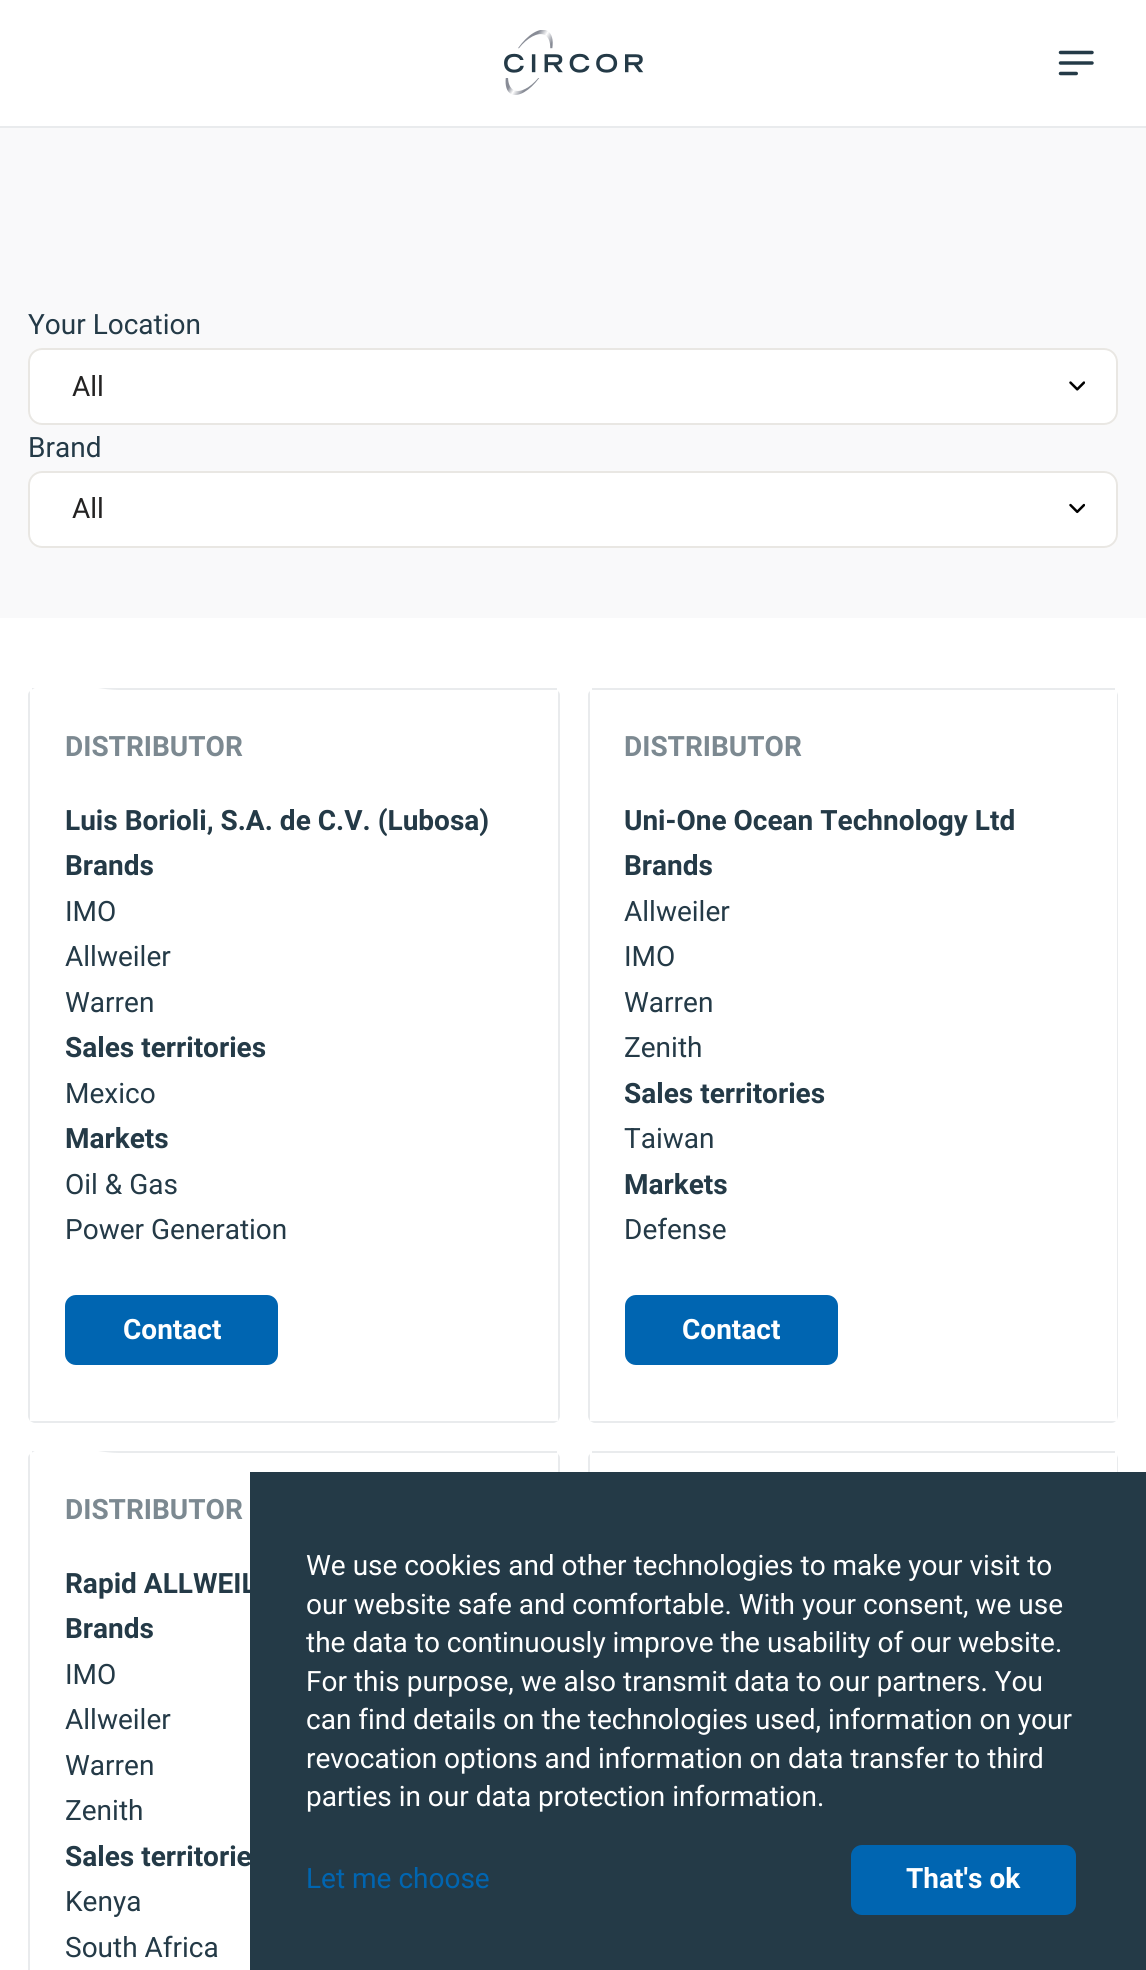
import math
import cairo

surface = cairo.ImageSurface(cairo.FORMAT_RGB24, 1146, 1970)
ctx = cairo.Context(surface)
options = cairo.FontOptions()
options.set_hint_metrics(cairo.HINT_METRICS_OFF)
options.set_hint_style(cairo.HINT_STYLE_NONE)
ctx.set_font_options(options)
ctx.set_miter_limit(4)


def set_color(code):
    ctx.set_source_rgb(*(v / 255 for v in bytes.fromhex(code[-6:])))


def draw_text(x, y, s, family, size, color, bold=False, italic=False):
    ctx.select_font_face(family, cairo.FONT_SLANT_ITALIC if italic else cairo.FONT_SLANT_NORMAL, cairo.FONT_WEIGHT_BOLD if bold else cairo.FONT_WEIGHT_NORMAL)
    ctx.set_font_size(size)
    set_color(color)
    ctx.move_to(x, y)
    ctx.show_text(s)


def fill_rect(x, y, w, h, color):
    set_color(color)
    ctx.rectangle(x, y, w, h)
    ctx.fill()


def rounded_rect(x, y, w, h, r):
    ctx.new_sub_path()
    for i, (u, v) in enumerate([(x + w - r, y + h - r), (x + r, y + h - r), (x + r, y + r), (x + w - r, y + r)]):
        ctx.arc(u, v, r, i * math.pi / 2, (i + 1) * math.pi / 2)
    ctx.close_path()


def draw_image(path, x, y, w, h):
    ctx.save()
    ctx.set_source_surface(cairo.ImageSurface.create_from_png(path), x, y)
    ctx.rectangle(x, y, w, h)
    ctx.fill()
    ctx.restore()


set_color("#ffffff")
ctx.paint()
fill_rect(0, 126, 1146, 2, "#e9ebed")
draw_image("assets/img1.png", 504, 30, 140, 65)
draw_image("assets/img2.png", 1058, 50, 36, 26)
fill_rect(0, 128, 1146, 490, "#f9f9fa")
draw_text(28, 334, "Your Location", "Roboto", 28, "#243a47")
set_color("#ffffff")
rounded_rect(28, 348, 1090, 77, 14)
ctx.fill()
draw_image("assets/img3.png", 1069, 381, 16, 10)
rounded_rect(29, 349, 1088, 75, 13)
set_color("#e9e7e3")
ctx.stroke()
draw_text(72, 396, "All", "Roboto", 28, "#232222")
draw_text(28, 457, "Brand", "Roboto", 28, "#243a47")
set_color("#ffffff")
rounded_rect(28, 471, 1090, 77, 14)
ctx.fill()
draw_image("assets/img4.png", 1069, 503, 16, 11)
rounded_rect(29, 472, 1088, 75, 13)
set_color("#e9e7e3")
ctx.stroke()
draw_text(72, 518, "All", "Roboto", 28, "#232222")
fill_rect(32, 688, 525, 2, "#e9ebed")
set_color("#ffffff")
ctx.new_path()
ctx.move_to(30, 691)
ctx.curve_to(54, 673, 89, 690, 119, 690)
ctx.line_to(556, 690)
ctx.line_to(558, 691)
ctx.line_to(558, 1421)
ctx.line_to(30, 1421)
ctx.close_path()
ctx.fill()
set_color("#e9ebed")
ctx.new_path()
ctx.move_to(560, 1416)
ctx.line_to(560, 695)
ctx.curve_to(560, 693, 559, 692, 558, 691)
ctx.line_to(558, 1421)
ctx.curve_to(559, 1419, 560, 1418, 560, 1416)
ctx.close_path()
ctx.fill()
ctx.new_path()
ctx.move_to(558, 1421)
ctx.curve_to(556, 1422, 555, 1423, 553, 1423)
ctx.line_to(35, 1423)
ctx.curve_to(33, 1423, 32, 1422, 30, 1421)
ctx.close_path()
ctx.fill()
ctx.new_path()
ctx.move_to(28, 695)
ctx.line_to(28, 1416)
ctx.curve_to(28, 1418, 29, 1419, 30, 1421)
ctx.line_to(30, 691)
ctx.curve_to(29, 692, 28, 693, 28, 695)
ctx.close_path()
ctx.fill()
draw_text(65, 756, "DISTRIBUTOR", "Roboto", 28, "#7c8991", bold=True)
draw_text(65, 830, "Luis Borioli, S.A. de C.V. (Lubosa)", "Roboto", 28, "#243a47", bold=True)
draw_text(65, 875, "Brands", "Roboto", 28, "#243a47", bold=True)
draw_text(65, 921, "IMO", "Roboto", 28, "#243a47")
draw_text(65, 966, "Allweiler", "Roboto", 28, "#243a47")
draw_text(65, 1012, "Warren", "Roboto", 28, "#243a47")
draw_text(65, 1057, "Sales territories", "Roboto", 28, "#243a47", bold=True)
draw_text(65, 1103, "Mexico", "Roboto", 28, "#243a47")
draw_text(65, 1148, "Markets", "Roboto", 28, "#243a47", bold=True)
draw_text(65, 1194, "Oil & Gas", "Roboto", 28, "#243a47")
draw_text(65, 1239, "Power Generation", "Roboto", 28, "#243a47")
set_color("#0065b1")
rounded_rect(65, 1295, 213, 70, 11)
ctx.fill()
draw_text(123, 1339, "Contact", "Roboto", 28, "#ffffff", bold=True)
fill_rect(592, 688, 523, 2, "#e9ebed")
ctx.new_path()
ctx.move_to(1117, 692)
ctx.line_to(1118, 695)
ctx.line_to(1118, 1416)
ctx.line_to(1117, 1420)
ctx.close_path()
ctx.fill()
ctx.new_path()
ctx.move_to(1116, 1421)
ctx.curve_to(1115, 1422, 1113, 1423, 1111, 1423)
ctx.line_to(595, 1423)
ctx.curve_to(593, 1423, 592, 1422, 590, 1421)
ctx.close_path()
ctx.fill()
ctx.new_path()
ctx.move_to(588, 695)
ctx.line_to(588, 1416)
ctx.curve_to(588, 1418, 589, 1419, 590, 1421)
ctx.line_to(590, 691)
ctx.curve_to(589, 692, 588, 693, 588, 695)
ctx.close_path()
ctx.fill()
draw_text(624, 756, "DISTRIBUTOR", "Roboto", 28, "#7c8991", bold=True)
draw_text(624, 830, "Uni-One Ocean Technology Ltd", "Roboto", 28, "#243a47", bold=True)
draw_text(624, 875, "Brands", "Roboto", 28, "#243a47", bold=True)
draw_text(624, 921, "Allweiler", "Roboto", 28, "#243a47")
draw_text(624, 966, "IMO", "Roboto", 28, "#243a47")
draw_text(624, 1012, "Warren", "Roboto", 28, "#243a47")
draw_text(624, 1057, "Zenith", "Roboto", 28, "#243a47")
draw_text(624, 1103, "Sales territories", "Roboto", 28, "#243a47", bold=True)
draw_text(624, 1148, "Taiwan", "Roboto", 28, "#243a47")
draw_text(624, 1194, "Markets", "Roboto", 28, "#243a47", bold=True)
draw_text(624, 1239, "Defense", "Roboto", 28, "#243a47")
set_color("#0065b1")
rounded_rect(625, 1295, 213, 70, 11)
ctx.fill()
draw_text(682, 1339, "Contact", "Roboto", 28, "#ffffff", bold=True)
fill_rect(32, 1451, 525, 2, "#e9ebed")
set_color("#ffffff")
ctx.new_path()
ctx.move_to(30, 1454)
ctx.curve_to(54, 1436, 89, 1453, 119, 1453)
ctx.line_to(556, 1453)
ctx.line_to(558, 1454)
ctx.line_to(558, 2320)
ctx.line_to(557, 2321)
ctx.line_to(31, 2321)
ctx.line_to(30, 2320)
ctx.close_path()
ctx.fill()
set_color("#e9ebed")
ctx.new_path()
ctx.move_to(560, 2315)
ctx.line_to(560, 1458)
ctx.curve_to(560, 1456, 559, 1455, 558, 1454)
ctx.line_to(558, 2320)
ctx.curve_to(559, 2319, 560, 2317, 560, 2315)
ctx.close_path()
ctx.fill()
ctx.new_path()
ctx.move_to(28, 1458)
ctx.line_to(28, 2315)
ctx.curve_to(28, 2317, 29, 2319, 30, 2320)
ctx.line_to(30, 1454)
ctx.curve_to(29, 1455, 28, 1456, 28, 1458)
ctx.close_path()
ctx.fill()
draw_text(65, 1519, "DISTRIBUTOR", "Roboto", 28, "#7c8991", bold=True)
draw_text(65, 1593, "Rapid ALLWEIL", "Roboto", 28, "#243a47", bold=True)
draw_text(65, 1638, "Brands", "Roboto", 28, "#243a47", bold=True)
draw_text(65, 1684, "IMO", "Roboto", 28, "#243a47")
draw_text(65, 1729, "Allweiler", "Roboto", 28, "#243a47")
draw_text(65, 1775, "Warren", "Roboto", 28, "#243a47")
draw_text(65, 1820, "Zenith", "Roboto", 28, "#243a47")
draw_text(65, 1866, "Sales territorie", "Roboto", 28, "#243a47", bold=True)
draw_text(65, 1911, "Kenya", "Roboto", 28, "#243a47")
draw_text(65, 1957, "South Africa", "Roboto", 28, "#243a47")
fill_rect(592, 1451, 523, 2, "#e9ebed")
ctx.new_path()
ctx.move_to(1117, 1455)
ctx.line_to(1118, 1458)
ctx.line_to(1118, 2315)
ctx.line_to(1117, 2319)
ctx.close_path()
ctx.fill()
ctx.new_path()
ctx.move_to(588, 1458)
ctx.line_to(588, 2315)
ctx.curve_to(588, 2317, 589, 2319, 590, 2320)
ctx.line_to(590, 1454)
ctx.curve_to(589, 1455, 588, 1456, 588, 1458)
ctx.close_path()
ctx.fill()
fill_rect(250, 1472, 896, 498, "#243a47")
draw_text(306, 1575, "We use cookies and other technologies to make your visit to", "Roboto", 28, "#ffffff")
draw_text(306, 1614, "our website safe and comfortable. With your consent, we use", "Roboto", 28, "#ffffff")
draw_text(306, 1652, "the data to continuously improve the usability of our website.", "Roboto", 28, "#ffffff")
draw_text(306, 1691, "For this purpose, we also transmit data to our partners. You", "Roboto", 28, "#ffffff")
draw_text(306, 1729, "can find details on the technologies used, information on your", "Roboto", 28, "#ffffff")
draw_text(306, 1768, "revocation options and information on data transfer to third", "Roboto", 28, "#ffffff")
draw_text(306, 1806, "parties in our data protection information.", "Roboto", 28, "#ffffff")
draw_text(306, 1888, "Let me choose", "Roboto", 28, "#0065b1")
rounded_rect(851, 1845, 225, 70, 11)
ctx.fill()
draw_text(906, 1888, "That's ok", "Roboto", 28, "#ffffff", bold=True)
surface.write_to_png("output.png")
